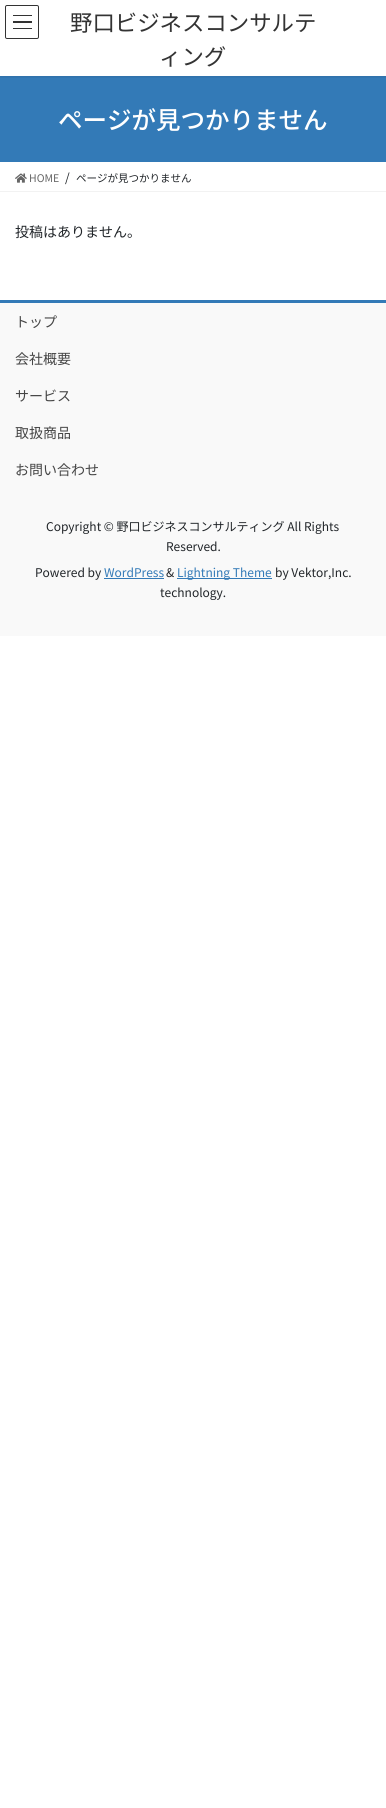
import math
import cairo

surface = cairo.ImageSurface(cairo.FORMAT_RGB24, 386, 1808)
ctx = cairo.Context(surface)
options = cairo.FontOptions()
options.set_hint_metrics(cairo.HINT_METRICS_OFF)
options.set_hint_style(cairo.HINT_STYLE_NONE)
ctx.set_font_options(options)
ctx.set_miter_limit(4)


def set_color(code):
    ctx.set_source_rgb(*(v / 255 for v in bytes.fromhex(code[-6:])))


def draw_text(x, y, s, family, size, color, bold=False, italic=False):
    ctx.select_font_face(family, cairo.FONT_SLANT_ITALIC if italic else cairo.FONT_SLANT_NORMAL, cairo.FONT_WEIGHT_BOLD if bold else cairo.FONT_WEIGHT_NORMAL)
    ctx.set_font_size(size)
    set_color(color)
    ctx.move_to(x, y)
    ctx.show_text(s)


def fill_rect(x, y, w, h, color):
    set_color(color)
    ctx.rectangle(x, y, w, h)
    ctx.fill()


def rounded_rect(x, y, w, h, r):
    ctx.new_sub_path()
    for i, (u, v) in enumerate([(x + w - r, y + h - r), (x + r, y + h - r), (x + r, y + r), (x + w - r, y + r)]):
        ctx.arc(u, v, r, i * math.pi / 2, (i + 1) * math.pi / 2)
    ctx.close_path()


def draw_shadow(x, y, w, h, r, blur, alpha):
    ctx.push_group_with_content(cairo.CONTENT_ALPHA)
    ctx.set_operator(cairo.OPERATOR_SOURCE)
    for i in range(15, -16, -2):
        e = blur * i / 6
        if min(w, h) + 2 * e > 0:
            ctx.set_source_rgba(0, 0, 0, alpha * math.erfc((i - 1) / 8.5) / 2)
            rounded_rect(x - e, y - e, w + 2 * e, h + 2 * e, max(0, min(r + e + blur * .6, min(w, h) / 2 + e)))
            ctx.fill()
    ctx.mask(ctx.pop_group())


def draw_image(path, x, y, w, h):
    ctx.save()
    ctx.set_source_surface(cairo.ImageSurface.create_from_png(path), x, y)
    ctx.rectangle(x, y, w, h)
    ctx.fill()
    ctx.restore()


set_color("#ffffff")
ctx.paint()
fill_rect(0, 76, 386, 86, "#337ab7")
ctx.save()
ctx.rectangle(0, 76, 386, 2)
ctx.clip()
set_color("#000000")
draw_shadow(0, 1, 386, 76, 0, 1.5, 0.1)
ctx.restore()
fill_rect(13, 15, 19, 1, "#333333")
fill_rect(13, 21, 19, 2, "#333333")
fill_rect(13, 28, 19, 1, "#333333")
rounded_rect(5.5, 5.5, 33, 33, 1.5)
ctx.set_line_width(1)
ctx.stroke()
draw_text(70, 31, "野口ビジネスコンサルテ", "Noto Sans JP", 22.4, "#333333")
draw_text(159, 65, "ィング", "Noto Sans JP", 22.4, "#333333")
draw_text(58, 129, "ページが見つかりません", "Noto Sans JP Medium", 24.5, "#ffffff")
fill_rect(0, 191, 386, 1, "#f2f2f2")
draw_image("assets/img1.png", 15, 173, 12, 10)
draw_text(29, 182, "HOME", "Noto Sans JP", 10.5, "#666666")
draw_text(65, 182, "/", "Noto Sans JP", 12, "#212529")
draw_text(76, 182, "ページが見つかりません", "Noto Sans JP", 10.5, "#212529")
draw_text(15, 237, "投稿はありません。", "Noto Sans JP", 14, "#212529")
fill_rect(0, 303, 386, 333, "#f9f9f9")
fill_rect(0, 300, 386, 3, "#337ab7")
draw_text(15, 327, "トップ", "Noto Sans JP", 14, "#464646")
draw_text(15, 364, "会社概要", "Noto Sans JP", 14, "#464646")
draw_text(15, 401, "サービス", "Noto Sans JP", 14, "#464646")
draw_text(15, 438, "取扱商品", "Noto Sans JP", 14, "#464646")
draw_text(15, 475, "お問い合わせ", "Noto Sans JP", 14, "#464646")
draw_text(46, 531, "Copyright © 野口ビジネスコンサルティング All Rights", "Noto Sans JP", 12, "#212529")
draw_text(166, 551, "Reserved.", "Noto Sans JP", 12, "#212529")
draw_text(35, 577, "Powered by", "Noto Sans JP", 12, "#212529")
draw_text(104, 577, "WordPress", "Noto Sans JP", 12, "#337ab7")
fill_rect(104, 578, 60, 1, "#337ab7")
draw_text(166, 577, "&", "Noto Sans JP", 12, "#212529")
fill_rect(177, 578, 95, 1, "#337ab7")
draw_text(177, 577, "Lightning Theme", "Noto Sans JP", 12, "#337ab7")
draw_text(275, 577, "by Vektor,Inc.", "Noto Sans JP", 12, "#212529")
draw_text(160, 597, "technology.", "Noto Sans JP", 12, "#212529")
surface.write_to_png("output.png")
